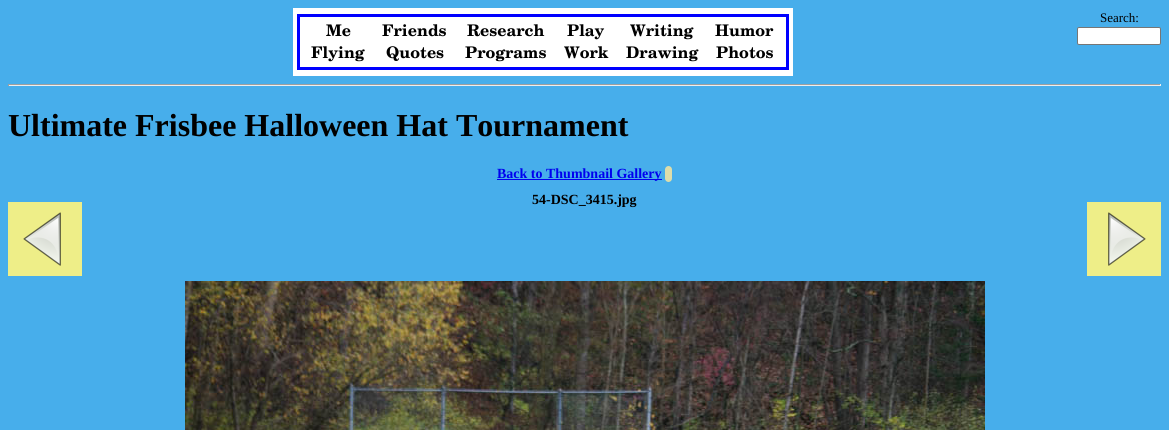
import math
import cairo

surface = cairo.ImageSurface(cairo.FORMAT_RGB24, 1169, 430)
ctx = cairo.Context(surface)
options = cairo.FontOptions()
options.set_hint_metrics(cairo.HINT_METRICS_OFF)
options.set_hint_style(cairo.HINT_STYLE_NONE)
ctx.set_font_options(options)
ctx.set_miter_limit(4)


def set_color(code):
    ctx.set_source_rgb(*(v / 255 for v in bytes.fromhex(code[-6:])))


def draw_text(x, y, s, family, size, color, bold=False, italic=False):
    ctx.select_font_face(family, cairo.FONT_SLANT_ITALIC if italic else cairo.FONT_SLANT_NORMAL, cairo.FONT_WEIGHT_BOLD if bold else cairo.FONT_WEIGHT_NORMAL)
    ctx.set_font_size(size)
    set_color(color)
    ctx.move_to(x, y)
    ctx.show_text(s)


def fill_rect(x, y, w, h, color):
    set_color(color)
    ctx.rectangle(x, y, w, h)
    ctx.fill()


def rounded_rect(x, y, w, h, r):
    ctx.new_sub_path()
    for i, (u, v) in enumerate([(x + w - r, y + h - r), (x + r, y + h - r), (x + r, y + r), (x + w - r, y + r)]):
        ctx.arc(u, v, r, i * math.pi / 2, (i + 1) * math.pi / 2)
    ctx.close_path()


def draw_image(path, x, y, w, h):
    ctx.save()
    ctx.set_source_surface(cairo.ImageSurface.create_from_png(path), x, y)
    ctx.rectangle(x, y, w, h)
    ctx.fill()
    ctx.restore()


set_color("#47aeeb")
ctx.paint()
draw_text(1100, 22, "Search:", "Liberation Serif", 13, "#000000")
set_color("#ffffff")
rounded_rect(1077.5, 27.5, 83, 17, 1.5)
ctx.fill_preserve()
set_color("#767676")
ctx.set_line_width(1)
ctx.stroke()
fill_rect(293, 8, 500, 68, "#ffffff")
ctx.rectangle(298.5, 15.5, 489, 53)
set_color("#0000ff")
ctx.set_line_width(3)
ctx.stroke()
draw_text(326, 36, "Me", "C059", 16, "#000000", bold=True)
draw_text(382, 36, "Friends", "C059", 16, "#000000", bold=True)
draw_text(467, 36, "Research", "C059", 16, "#000000", bold=True)
draw_text(567, 36, "Play", "C059", 16, "#000000", bold=True)
draw_text(630, 36, "Writing", "C059", 16, "#000000", bold=True)
draw_text(715, 36, "Humor", "C059", 16, "#000000", bold=True)
draw_text(311, 58, "Flying", "C059", 16, "#000000", bold=True)
draw_text(386, 58, "Quotes", "C059", 16, "#000000", bold=True)
draw_text(465, 58, "Programs", "C059", 16, "#000000", bold=True)
draw_text(564, 58, "Work", "C059", 16, "#000000", bold=True)
draw_text(626, 58, "Drawing", "C059", 16, "#000000", bold=True)
draw_text(716, 58, "Photos", "C059", 16, "#000000", bold=True)
fill_rect(8, 84, 1153, 1, "#9f9f9f")
fill_rect(1160, 84, 1, 2, "#eeeeee")
fill_rect(8, 85, 1153, 1, "#eeeeee")
fill_rect(8, 84, 1, 2, "#9f9f9f")
draw_text(8, 136, "Ultimate Frisbee Halloween Hat Tournament", "Liberation Serif", 32, "#000000", bold=True)
fill_rect(497, 179, 165, 1, "#0000ee")
draw_text(497, 178, "Back to Thumbnail Gallery", "Liberation Serif", 14, "#0000ee", bold=True)
set_color("#ddddaa")
rounded_rect(665, 166, 7, 16, 3.5)
ctx.fill()
fill_rect(8, 202, 74, 74, "#eeee88")
draw_image("assets/img1.png", 23, 212, 38, 54)
draw_text(532, 204, "54-DSC_3415.jpg", "Liberation Serif", 14, "#000000", bold=True)
fill_rect(1087, 202, 74, 74, "#eeee88")
draw_image("assets/img2.png", 1108, 212, 38, 54)
draw_image("assets/img3.png", 185, 281, 800, 149)
surface.write_to_png("output.png")
